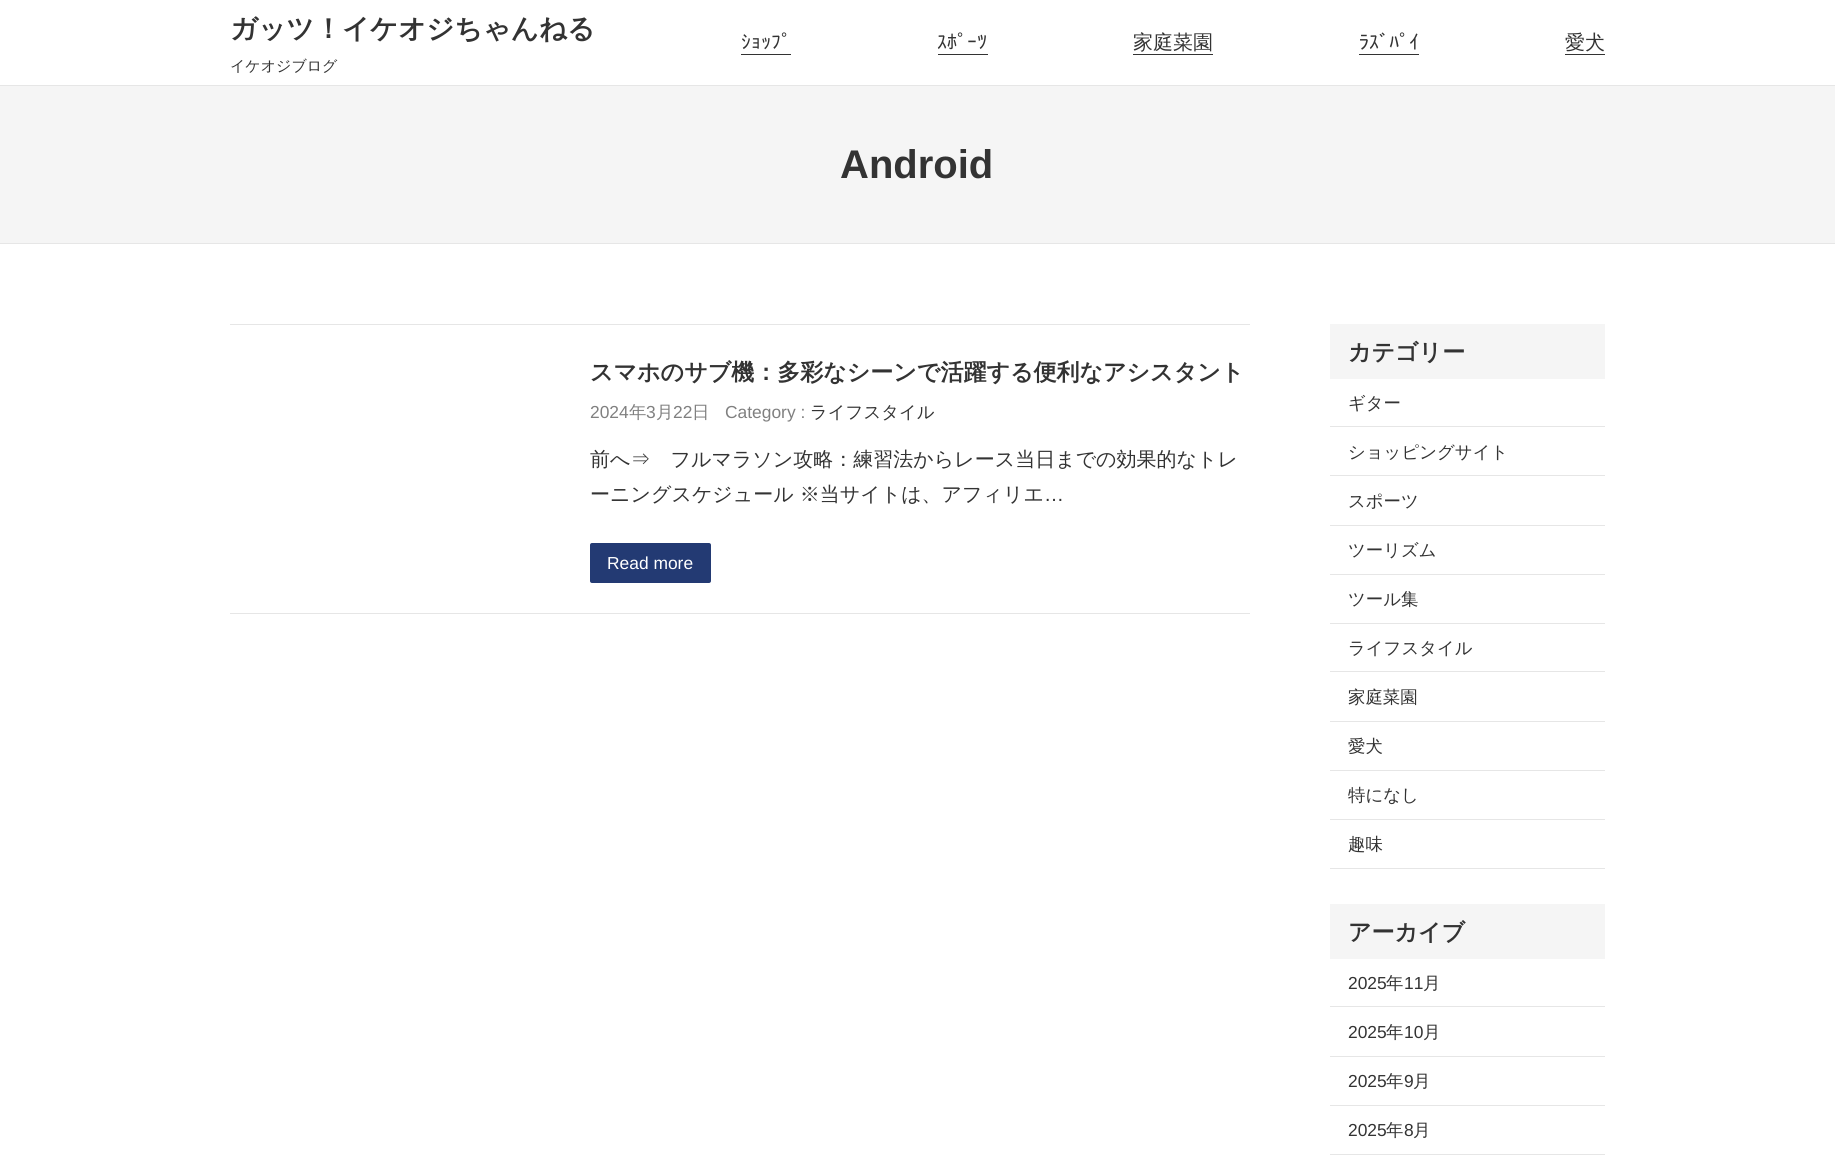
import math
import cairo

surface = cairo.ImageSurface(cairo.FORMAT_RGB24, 1835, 1174)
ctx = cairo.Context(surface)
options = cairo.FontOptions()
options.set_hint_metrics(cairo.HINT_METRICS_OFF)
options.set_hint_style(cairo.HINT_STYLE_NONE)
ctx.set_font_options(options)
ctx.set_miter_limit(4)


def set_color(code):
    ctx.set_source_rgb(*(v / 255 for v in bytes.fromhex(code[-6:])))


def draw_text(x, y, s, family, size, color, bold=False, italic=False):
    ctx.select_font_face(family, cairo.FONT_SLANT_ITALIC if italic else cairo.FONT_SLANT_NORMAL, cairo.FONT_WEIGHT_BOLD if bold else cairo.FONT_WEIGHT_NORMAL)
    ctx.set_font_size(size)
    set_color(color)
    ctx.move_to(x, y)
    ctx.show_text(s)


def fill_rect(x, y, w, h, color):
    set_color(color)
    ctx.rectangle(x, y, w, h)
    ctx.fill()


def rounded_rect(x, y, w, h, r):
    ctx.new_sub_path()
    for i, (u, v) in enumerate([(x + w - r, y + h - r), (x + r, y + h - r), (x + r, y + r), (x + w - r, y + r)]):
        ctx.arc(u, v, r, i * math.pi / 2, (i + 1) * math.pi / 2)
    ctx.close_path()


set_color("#ffffff")
ctx.paint()
draw_text(230, 38, "ガッツ！イケオジちゃんねる", "WenQuanYi Zen Hei", 27.5, "#333333", bold=True)
draw_text(230, 71, "イケオジブログ", "WenQuanYi Zen Hei Medium", 15, "#333333")
draw_text(741, 49, "ｼｮｯﾌﾟ", "IPAPGothic", 20, "#333333")
fill_rect(741, 54, 50, 1, "#333333")
draw_text(937, 49, "ｽﾎﾟｰﾂ", "IPAPGothic", 20, "#333333")
fill_rect(938, 54, 50, 1, "#333333")
draw_text(1133, 49, "家庭菜園", "WenQuanYi Zen Hei Medium", 20, "#333333")
fill_rect(1133, 54, 80, 1, "#333333")
draw_text(1359, 49, "ﾗｽﾞﾊﾟｲ", "IPAPGothic", 20, "#333333")
fill_rect(1359, 54, 60, 1, "#333333")
draw_text(1565, 49, "愛犬", "WenQuanYi Zen Hei Medium", 20, "#333333")
fill_rect(1565, 54, 40, 1, "#333333")
fill_rect(0, 85, 1835, 1, "#e6e6e6")
fill_rect(0, 86, 1835, 157, "#f5f5f5")
draw_text(840, 178, "Android", "Liberation Sans", 40, "#333333", bold=True)
fill_rect(0, 243, 1835, 1, "#e6e6e6")
fill_rect(230, 324, 1020, 1, "#e6e6e6")
draw_text(590, 380, "スマホのサブ機：多彩なシーンで活躍する便利なアシスタント", "WenQuanYi Zen Hei", 23, "#333333", bold=True)
draw_text(590, 418, "2024", "Liberation Sans", 17.4, "#808080")
draw_text(629, 418, "年", "WenQuanYi Zen Hei Medium", 17.4, "#808080")
draw_text(646, 418, "3", "Liberation Sans", 17.4, "#808080")
draw_text(656, 418, "月", "WenQuanYi Zen Hei Medium", 17.4, "#808080")
draw_text(673, 418, "22", "Liberation Sans", 17.4, "#808080")
draw_text(692, 418, "日", "WenQuanYi Zen Hei Medium", 17.4, "#808080")
draw_text(725, 418, "Category :", "Liberation Sans", 17.4, "#808080")
draw_text(810, 418, "ライフスタイル", "WenQuanYi Zen Hei Medium", 17.4, "#333333")
draw_text(590, 466, "前へ⇒　フルマラソン攻略：練習法からレース当日までの効果的なトレ", "WenQuanYi Zen Hei Medium", 20, "#333333")
draw_text(590, 501, "ーニングスケジュール ※当サイトは、アフィリエ", "WenQuanYi Zen Hei Medium", 20, "#333333")
draw_text(1044, 501, "…", "Liberation Sans", 20, "#333333")
set_color("#233a73")
rounded_rect(590, 543, 121, 40, 2)
ctx.fill()
draw_text(607, 569, "Read more", "Liberation Sans", 17.4, "#ffffff")
fill_rect(230, 613, 1020, 1, "#e6e6e6")
fill_rect(1330, 324, 275, 55, "#f5f5f5")
draw_text(1348, 360, "カテゴリー", "WenQuanYi Zen Hei", 23, "#333333", bold=True)
fill_rect(1330, 426, 275, 1, "#e6e6e6")
draw_text(1348, 409, "ギター", "WenQuanYi Zen Hei Medium", 17.4, "#333333")
fill_rect(1330, 475, 275, 1, "#e6e6e6")
draw_text(1348, 458, "ショッピングサイト", "WenQuanYi Zen Hei Medium", 17.4, "#333333")
fill_rect(1330, 525, 275, 1, "#e6e6e6")
draw_text(1348, 507, "スポーツ", "WenQuanYi Zen Hei Medium", 17.4, "#333333")
fill_rect(1330, 574, 275, 1, "#e6e6e6")
draw_text(1348, 556, "ツーリズム", "WenQuanYi Zen Hei Medium", 17.4, "#333333")
fill_rect(1330, 623, 275, 1, "#e6e6e6")
draw_text(1348, 605, "ツール集", "WenQuanYi Zen Hei Medium", 17.4, "#333333")
fill_rect(1330, 671, 275, 1, "#e6e6e6")
draw_text(1348, 654, "ライフスタイル", "WenQuanYi Zen Hei Medium", 17.4, "#333333")
fill_rect(1330, 721, 275, 1, "#e6e6e6")
draw_text(1348, 703, "家庭菜園", "WenQuanYi Zen Hei Medium", 17.4, "#333333")
fill_rect(1330, 770, 275, 1, "#e6e6e6")
draw_text(1348, 752, "愛犬", "WenQuanYi Zen Hei Medium", 17.4, "#333333")
fill_rect(1330, 819, 275, 1, "#e6e6e6")
draw_text(1348, 801, "特になし", "WenQuanYi Zen Hei Medium", 17.4, "#333333")
fill_rect(1330, 868, 275, 1, "#e6e6e6")
draw_text(1348, 850, "趣味", "WenQuanYi Zen Hei Medium", 17.4, "#333333")
fill_rect(1330, 904, 275, 55, "#f5f5f5")
draw_text(1348, 940, "アーカイブ", "WenQuanYi Zen Hei", 23, "#333333", bold=True)
fill_rect(1330, 1006, 275, 1, "#e6e6e6")
draw_text(1348, 989, "2025", "Liberation Sans", 17.4, "#333333")
draw_text(1386, 989, "年", "WenQuanYi Zen Hei Medium", 17.4, "#333333")
draw_text(1404, 989, "11", "Liberation Sans", 17.4, "#333333")
draw_text(1423, 989, "月", "WenQuanYi Zen Hei Medium", 17.4, "#333333")
fill_rect(1330, 1056, 275, 1, "#e6e6e6")
draw_text(1348, 1038, "2025", "Liberation Sans", 17.4, "#333333")
draw_text(1386, 1038, "年", "WenQuanYi Zen Hei Medium", 17.4, "#333333")
draw_text(1404, 1038, "10", "Liberation Sans", 17.4, "#333333")
draw_text(1423, 1038, "月", "WenQuanYi Zen Hei Medium", 17.4, "#333333")
fill_rect(1330, 1105, 275, 1, "#e6e6e6")
draw_text(1348, 1087, "2025", "Liberation Sans", 17.4, "#333333")
draw_text(1386, 1087, "年", "WenQuanYi Zen Hei Medium", 17.4, "#333333")
draw_text(1404, 1087, "9", "Liberation Sans", 17.4, "#333333")
draw_text(1413, 1087, "月", "WenQuanYi Zen Hei Medium", 17.4, "#333333")
fill_rect(1330, 1154, 275, 1, "#e6e6e6")
draw_text(1348, 1136, "2025", "Liberation Sans", 17.4, "#333333")
draw_text(1386, 1136, "年", "WenQuanYi Zen Hei Medium", 17.4, "#333333")
draw_text(1404, 1136, "8", "Liberation Sans", 17.4, "#333333")
draw_text(1413, 1136, "月", "WenQuanYi Zen Hei Medium", 17.4, "#333333")
surface.write_to_png("output.png")
